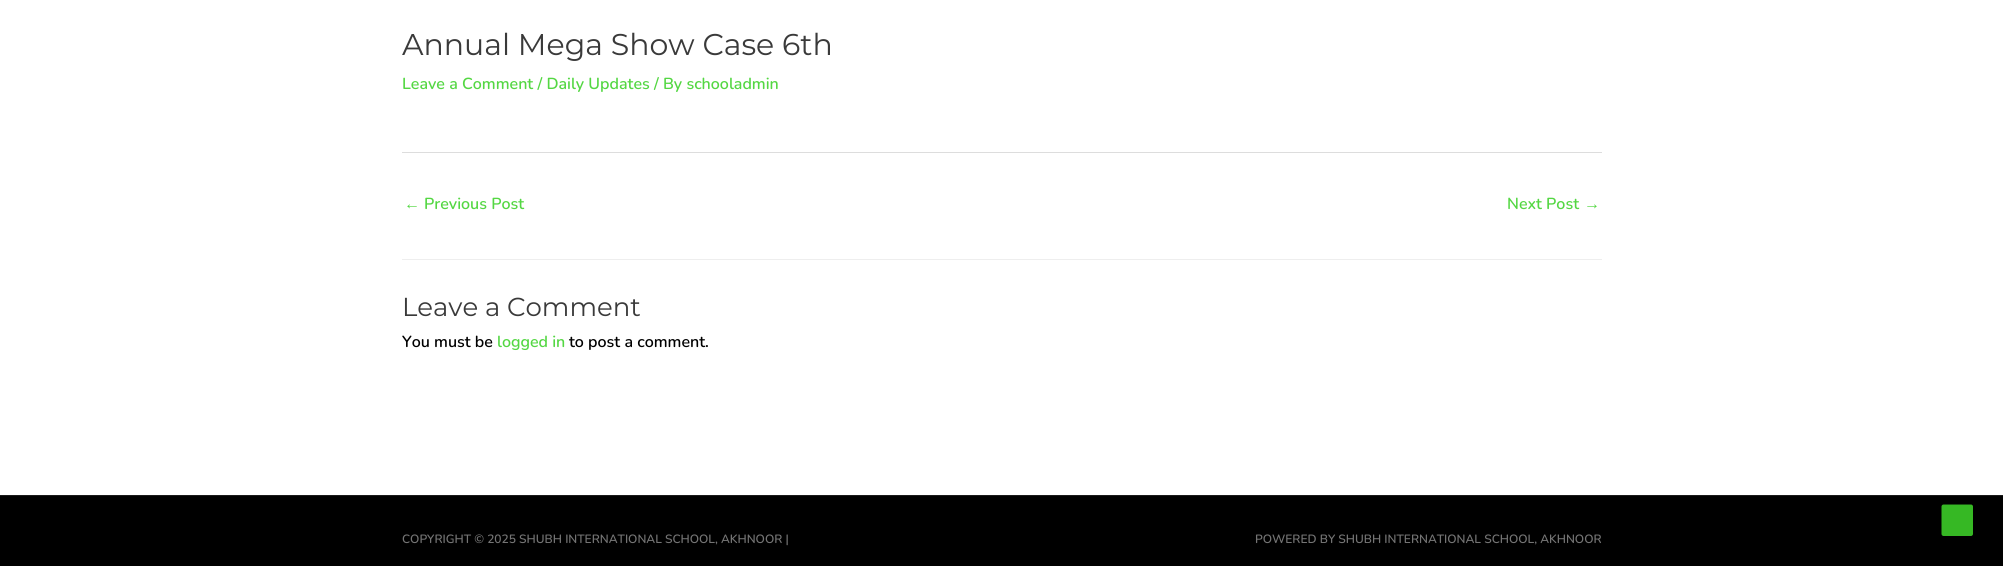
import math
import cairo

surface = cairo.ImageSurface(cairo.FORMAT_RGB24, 2003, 566)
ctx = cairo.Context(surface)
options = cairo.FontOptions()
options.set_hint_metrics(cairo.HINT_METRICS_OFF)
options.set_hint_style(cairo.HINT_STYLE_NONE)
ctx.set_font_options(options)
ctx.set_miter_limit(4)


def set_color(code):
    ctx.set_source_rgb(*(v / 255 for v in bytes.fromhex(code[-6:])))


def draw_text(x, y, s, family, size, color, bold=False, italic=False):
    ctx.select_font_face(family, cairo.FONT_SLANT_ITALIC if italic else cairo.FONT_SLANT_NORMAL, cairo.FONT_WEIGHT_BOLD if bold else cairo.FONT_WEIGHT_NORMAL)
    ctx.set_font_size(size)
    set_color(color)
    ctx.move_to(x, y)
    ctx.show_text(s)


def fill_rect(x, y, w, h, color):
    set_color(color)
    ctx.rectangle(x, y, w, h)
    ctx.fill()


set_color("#ffffff")
ctx.paint()
draw_text(402, 55, "Annual Mega Show Case 6th", "Montserrat", 30, "#3a3a3a")
draw_text(402, 89, "Leave a Comment / Daily Updates / By schooladmin", "Nunito SemiBold", 16, "#54d743")
fill_rect(402, 152, 1200, 1, "#dddddd")
draw_text(404, 209, "←", "Liberation Sans", 16, "#54d743", bold=True)
draw_text(424, 209, "Previous Post", "Nunito SemiBold", 16, "#54d743")
draw_text(1507, 209, "Next Post", "Nunito SemiBold", 16, "#54d743")
draw_text(1584, 209, "→", "Liberation Sans", 16, "#54d743", bold=True)
fill_rect(402, 259, 1200, 1, "#eeeeee")
draw_text(402, 316, "Leave a Comment", "Montserrat", 26, "#3a3a3a")
draw_text(402, 347, "You must be", "Nunito SemiBold", 16, "#000000")
draw_text(497, 347, "logged in", "Nunito SemiBold", 16, "#54d743")
draw_text(569, 347, "to post a comment.", "Nunito SemiBold", 16, "#000000")
fill_rect(0, 495, 2003, 1, "#1a1a1a")
fill_rect(0, 496, 2003, 70, "#000000")
draw_text(402, 543, "COPYRIGHT © 2025 SHUBH INTERNATIONAL SCHOOL, AKHNOOR |", "Nunito SemiBold", 12, "#747474")
draw_text(1255, 543, "POWERED BY SHUBH INTERNATIONAL SCHOOL, AKHNOOR", "Nunito SemiBold", 12, "#747474")
set_color("#36b824")
ctx.new_path()
ctx.move_to(1971, 536)
ctx.line_to(1943.5, 536)
ctx.curve_to(1942.5, 536, 1941.5, 535, 1941.5, 534)
ctx.line_to(1941.5, 506.5)
ctx.curve_to(1941.5, 505.5, 1942.5, 504.5, 1943.5, 504.5)
ctx.line_to(1971, 504.5)
ctx.curve_to(1972, 504.5, 1973, 505.5, 1973, 506.5)
ctx.line_to(1973, 534)
ctx.curve_to(1973, 535, 1972, 536, 1971, 536)
ctx.close_path()
ctx.fill()
surface.write_to_png("output.png")
